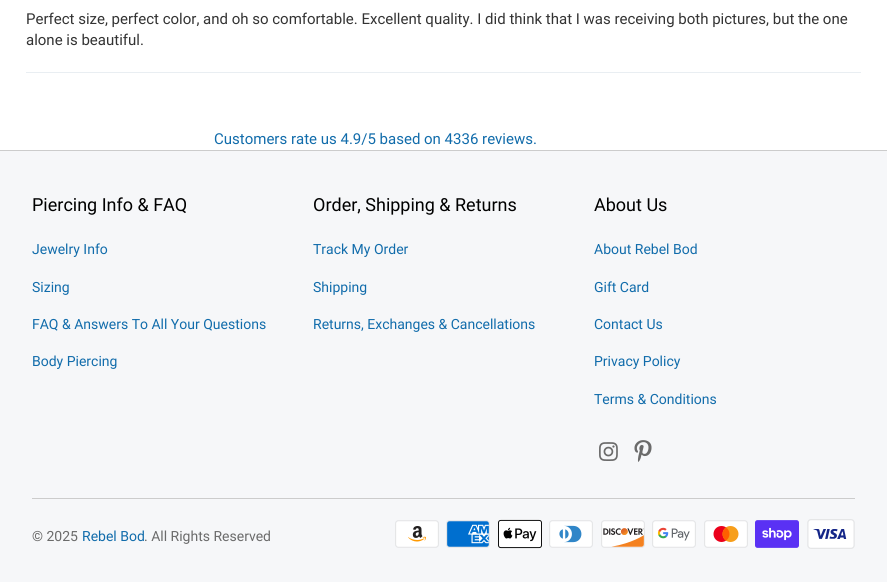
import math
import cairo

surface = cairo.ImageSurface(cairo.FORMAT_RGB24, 887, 582)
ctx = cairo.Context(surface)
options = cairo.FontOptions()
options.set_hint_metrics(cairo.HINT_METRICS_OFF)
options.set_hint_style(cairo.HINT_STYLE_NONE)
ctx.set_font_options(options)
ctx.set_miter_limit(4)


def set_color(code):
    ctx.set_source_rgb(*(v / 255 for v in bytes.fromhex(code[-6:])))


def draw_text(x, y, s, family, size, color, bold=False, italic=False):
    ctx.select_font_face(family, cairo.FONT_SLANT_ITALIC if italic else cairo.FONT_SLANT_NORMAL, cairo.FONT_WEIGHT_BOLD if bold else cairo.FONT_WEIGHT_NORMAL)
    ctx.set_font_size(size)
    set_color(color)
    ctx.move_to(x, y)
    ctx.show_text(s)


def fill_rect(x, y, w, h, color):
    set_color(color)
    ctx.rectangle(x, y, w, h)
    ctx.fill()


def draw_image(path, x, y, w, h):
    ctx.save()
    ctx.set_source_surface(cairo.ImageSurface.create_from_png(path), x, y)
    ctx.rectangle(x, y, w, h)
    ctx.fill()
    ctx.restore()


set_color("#ffffff")
ctx.paint()
draw_text(26, 24, "Perfect size, perfect color, and oh so comfortable. Excellent quality. I did think that I was receiving both pictures, but the one", "Roboto", 15, "#333333")
draw_text(26, 45, "alone is beautiful.", "Roboto", 15, "#333333")
fill_rect(26, 72, 835, 1, "#e9eef2")
draw_text(214, 144, "Customers rate us 4.9/5 based on 4336 reviews.", "Roboto", 15, "#116cab")
fill_rect(0, 151, 887, 431, "#f6f7f9")
fill_rect(0, 150, 887, 1, "#cccccc")
draw_text(32, 211, "Piercing Info & FAQ", "Roboto", 18, "#000000")
draw_text(32, 254, "Jewelry Info", "Roboto", 14, "#116cab")
draw_text(32, 292, "Sizing", "Roboto", 14, "#116cab")
draw_text(32, 329, "FAQ & Answers To All Your Questions", "Roboto", 14, "#116cab")
draw_text(32, 366, "Body Piercing", "Roboto", 14, "#116cab")
draw_text(313, 211, "Order, Shipping & Returns", "Roboto", 18, "#000000")
draw_text(313, 254, "Track My Order", "Roboto", 14, "#116cab")
draw_text(313, 292, "Shipping", "Roboto", 14, "#116cab")
draw_text(313, 329, "Returns, Exchanges & Cancellations", "Roboto", 14, "#116cab")
draw_text(594, 211, "About Us", "Roboto", 18, "#000000")
draw_text(594, 254, "About Rebel Bod", "Roboto", 14, "#116cab")
draw_text(594, 292, "Gift Card", "Roboto", 14, "#116cab")
draw_text(594, 329, "Contact Us", "Roboto", 14, "#116cab")
draw_text(594, 366, "Privacy Policy", "Roboto", 14, "#116cab")
draw_text(594, 404, "Terms & Conditions", "Roboto", 14, "#116cab")
draw_image("assets/img1.png", 599, 442, 19, 19)
draw_image("assets/img2.png", 634, 440, 18, 22)
fill_rect(32, 498, 823, 1, "#cccccc")
draw_text(32, 541, "© 2025", "Roboto", 14, "#6b6b6b")
draw_text(82, 541, "Rebel Bod", "Roboto", 14, "#116cab")
draw_text(144, 541, ". All Rights Reserved", "Roboto", 14, "#6b6b6b")
draw_image("assets/img3.png", 395, 520, 44, 28)
draw_image("assets/img4.png", 446, 520, 44, 28)
draw_image("assets/img5.png", 498, 519, 44, 30)
draw_image("assets/img6.png", 549, 520, 44, 28)
draw_image("assets/img7.png", 601, 520, 44, 28)
draw_image("assets/img8.png", 652, 520, 44, 28)
draw_image("assets/img9.png", 704, 520, 44, 28)
draw_image("assets/img10.png", 755, 520, 44, 28)
draw_image("assets/img11.png", 807, 519, 48, 30)
surface.write_to_png("output.png")
